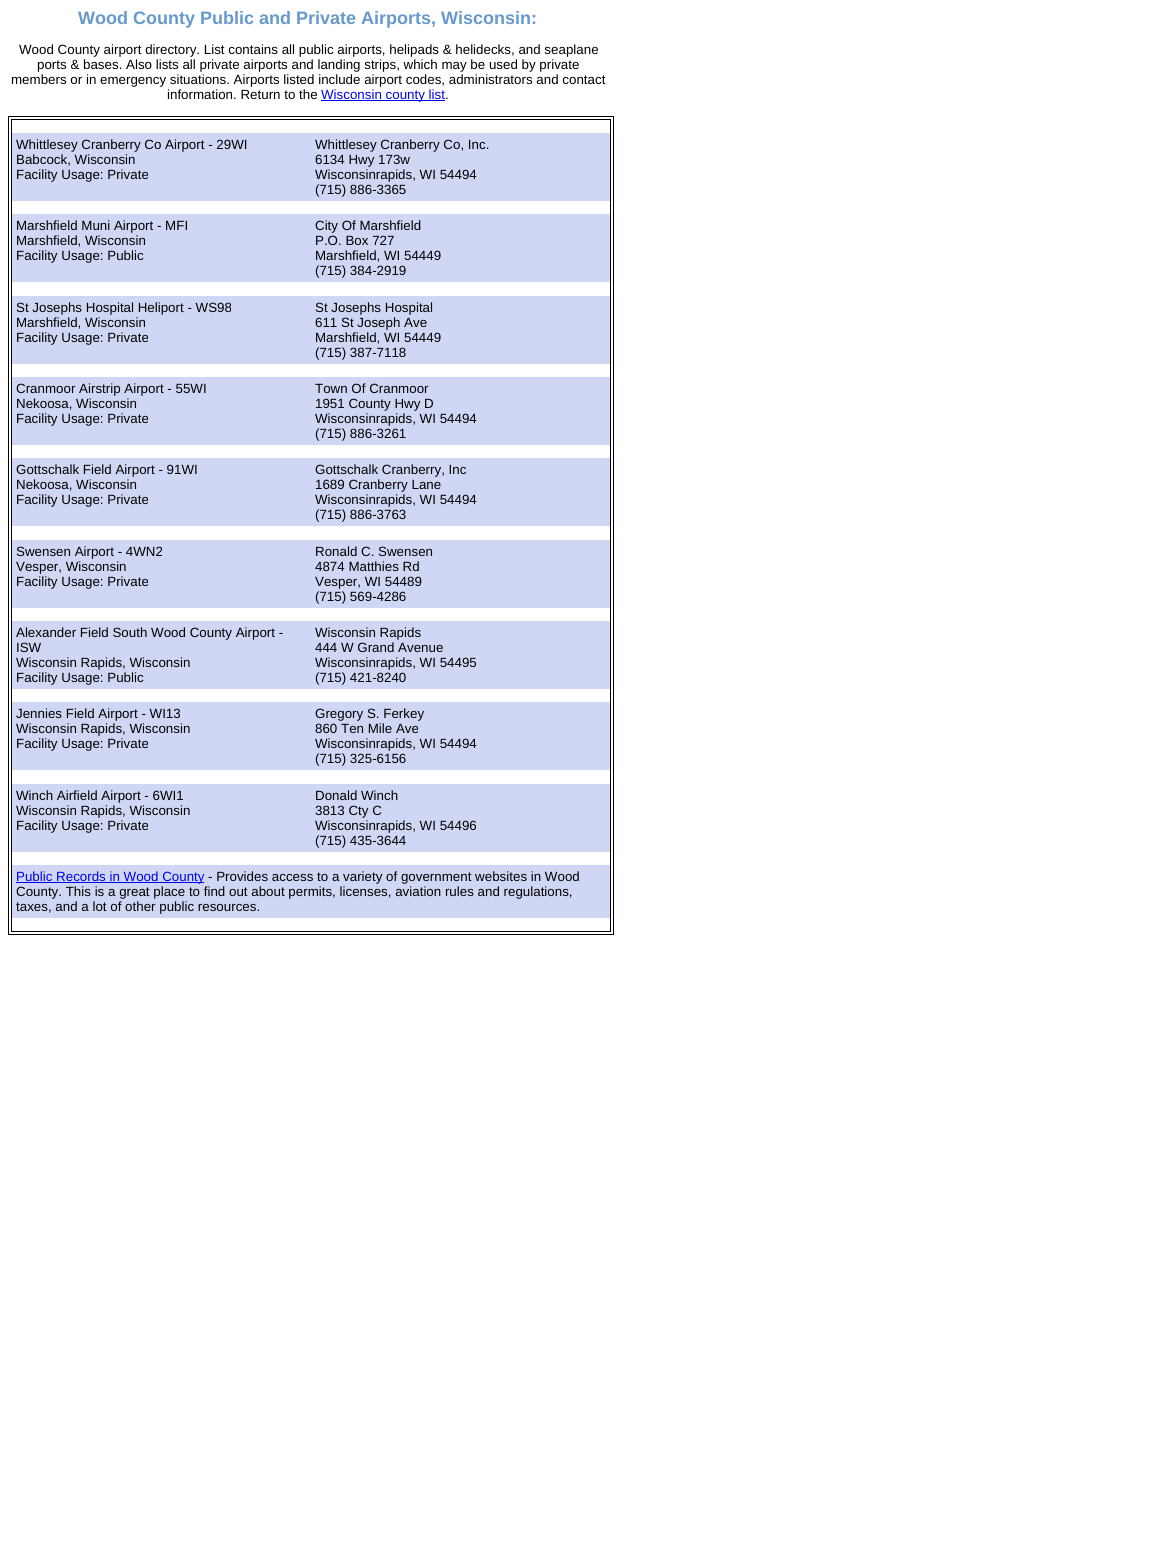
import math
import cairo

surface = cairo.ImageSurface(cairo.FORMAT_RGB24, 1158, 1568)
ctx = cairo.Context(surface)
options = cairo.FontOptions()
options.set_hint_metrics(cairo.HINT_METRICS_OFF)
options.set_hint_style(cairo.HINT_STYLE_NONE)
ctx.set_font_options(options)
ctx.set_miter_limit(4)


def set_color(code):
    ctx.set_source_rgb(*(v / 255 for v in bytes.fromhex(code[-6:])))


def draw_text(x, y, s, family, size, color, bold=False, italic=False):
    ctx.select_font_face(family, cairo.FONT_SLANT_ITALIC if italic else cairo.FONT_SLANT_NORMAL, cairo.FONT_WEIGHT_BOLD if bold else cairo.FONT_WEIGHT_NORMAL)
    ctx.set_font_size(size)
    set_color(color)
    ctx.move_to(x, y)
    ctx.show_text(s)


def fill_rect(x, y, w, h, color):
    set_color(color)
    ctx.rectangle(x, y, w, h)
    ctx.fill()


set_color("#ffffff")
ctx.paint()
draw_text(78, 24, "Wood County Public and Private Airports, Wisconsin:", "Liberation Sans", 18, "#6699cc", bold=True)
draw_text(19, 54, "Wood County airport directory. List contains all public airports, helipads & helidecks, and seaplane", "Liberation Sans", 13.35, "#000000")
draw_text(37, 69, "ports & bases. Also lists all private airports and landing strips, which may be used by private", "Liberation Sans", 13.35, "#000000")
draw_text(11, 84, "members or in emergency situations. Airports listed include airport codes, administrators and contact", "Liberation Sans", 13.35, "#000000")
draw_text(167, 99, "information. Return to the", "Liberation Sans", 13.35, "#000000")
fill_rect(321, 100, 124, 1, "#0000ee")
draw_text(321, 99, "Wisconsin county list", "Liberation Sans", 13.35, "#0000ee")
draw_text(445, 99, ".", "Liberation Sans", 13.35, "#000000")
ctx.rectangle(8.5, 116.5, 605, 818)
ctx.set_line_width(1)
ctx.stroke()
ctx.rectangle(11.5, 119.5, 599, 812)
ctx.stroke()
fill_rect(12, 133, 598, 68, "#d0d7f4")
draw_text(16, 149, "Whittlesey Cranberry Co Airport - 29WI", "Liberation Sans", 13.35, "#000000")
draw_text(16, 164, "Babcock, Wisconsin", "Liberation Sans", 13.35, "#000000")
draw_text(16, 179, "Facility Usage: Private", "Liberation Sans", 13.35, "#000000")
draw_text(315, 149, "Whittlesey Cranberry Co, Inc.", "Liberation Sans", 13.35, "#000000")
draw_text(315, 164, "6134 Hwy 173w", "Liberation Sans", 13.35, "#000000")
draw_text(315, 179, "Wisconsinrapids, WI 54494", "Liberation Sans", 13.35, "#000000")
draw_text(315, 194, "(715) 886-3365", "Liberation Sans", 13.35, "#000000")
fill_rect(12, 214, 598, 68, "#d0d7f4")
draw_text(16, 230, "Marshfield Muni Airport - MFI", "Liberation Sans", 13.35, "#000000")
draw_text(16, 245, "Marshfield, Wisconsin", "Liberation Sans", 13.35, "#000000")
draw_text(16, 260, "Facility Usage: Public", "Liberation Sans", 13.35, "#000000")
draw_text(315, 230, "City Of Marshfield", "Liberation Sans", 13.35, "#000000")
draw_text(315, 245, "P.O. Box 727", "Liberation Sans", 13.35, "#000000")
draw_text(315, 260, "Marshfield, WI 54449", "Liberation Sans", 13.35, "#000000")
draw_text(315, 275, "(715) 384-2919", "Liberation Sans", 13.35, "#000000")
fill_rect(12, 296, 598, 68, "#d0d7f4")
draw_text(16, 312, "St Josephs Hospital Heliport - WS98", "Liberation Sans", 13.35, "#000000")
draw_text(16, 327, "Marshfield, Wisconsin", "Liberation Sans", 13.35, "#000000")
draw_text(16, 342, "Facility Usage: Private", "Liberation Sans", 13.35, "#000000")
draw_text(315, 312, "St Josephs Hospital", "Liberation Sans", 13.35, "#000000")
draw_text(315, 327, "611 St Joseph Ave", "Liberation Sans", 13.35, "#000000")
draw_text(315, 342, "Marshfield, WI 54449", "Liberation Sans", 13.35, "#000000")
draw_text(315, 357, "(715) 387-7118", "Liberation Sans", 13.35, "#000000")
fill_rect(12, 377, 598, 68, "#d0d7f4")
draw_text(16, 393, "Cranmoor Airstrip Airport - 55WI", "Liberation Sans", 13.35, "#000000")
draw_text(16, 408, "Nekoosa, Wisconsin", "Liberation Sans", 13.35, "#000000")
draw_text(16, 423, "Facility Usage: Private", "Liberation Sans", 13.35, "#000000")
draw_text(315, 393, "Town Of Cranmoor", "Liberation Sans", 13.35, "#000000")
draw_text(315, 408, "1951 County Hwy D", "Liberation Sans", 13.35, "#000000")
draw_text(315, 423, "Wisconsinrapids, WI 54494", "Liberation Sans", 13.35, "#000000")
draw_text(315, 438, "(715) 886-3261", "Liberation Sans", 13.35, "#000000")
fill_rect(12, 458, 598, 68, "#d0d7f4")
draw_text(16, 474, "Gottschalk Field Airport - 91WI", "Liberation Sans", 13.35, "#000000")
draw_text(16, 489, "Nekoosa, Wisconsin", "Liberation Sans", 13.35, "#000000")
draw_text(16, 504, "Facility Usage: Private", "Liberation Sans", 13.35, "#000000")
draw_text(315, 474, "Gottschalk Cranberry, Inc", "Liberation Sans", 13.35, "#000000")
draw_text(315, 489, "1689 Cranberry Lane", "Liberation Sans", 13.35, "#000000")
draw_text(315, 504, "Wisconsinrapids, WI 54494", "Liberation Sans", 13.35, "#000000")
draw_text(315, 519, "(715) 886-3763", "Liberation Sans", 13.35, "#000000")
fill_rect(12, 540, 598, 68, "#d0d7f4")
draw_text(16, 556, "Swensen Airport - 4WN2", "Liberation Sans", 13.35, "#000000")
draw_text(16, 571, "Vesper, Wisconsin", "Liberation Sans", 13.35, "#000000")
draw_text(16, 586, "Facility Usage: Private", "Liberation Sans", 13.35, "#000000")
draw_text(315, 556, "Ronald C. Swensen", "Liberation Sans", 13.35, "#000000")
draw_text(315, 571, "4874 Matthies Rd", "Liberation Sans", 13.35, "#000000")
draw_text(315, 586, "Vesper, WI 54489", "Liberation Sans", 13.35, "#000000")
draw_text(315, 601, "(715) 569-4286", "Liberation Sans", 13.35, "#000000")
fill_rect(12, 621, 598, 68, "#d0d7f4")
draw_text(16, 637, "Alexander Field South Wood County Airport -", "Liberation Sans", 13.35, "#000000")
draw_text(16, 652, "ISW", "Liberation Sans", 13.35, "#000000")
draw_text(16, 667, "Wisconsin Rapids, Wisconsin", "Liberation Sans", 13.35, "#000000")
draw_text(16, 682, "Facility Usage: Public", "Liberation Sans", 13.35, "#000000")
draw_text(315, 637, "Wisconsin Rapids", "Liberation Sans", 13.35, "#000000")
draw_text(315, 652, "444 W Grand Avenue", "Liberation Sans", 13.35, "#000000")
draw_text(315, 667, "Wisconsinrapids, WI 54495", "Liberation Sans", 13.35, "#000000")
draw_text(315, 682, "(715) 421-8240", "Liberation Sans", 13.35, "#000000")
fill_rect(12, 702, 598, 68, "#d0d7f4")
draw_text(16, 718, "Jennies Field Airport - WI13", "Liberation Sans", 13.35, "#000000")
draw_text(16, 733, "Wisconsin Rapids, Wisconsin", "Liberation Sans", 13.35, "#000000")
draw_text(16, 748, "Facility Usage: Private", "Liberation Sans", 13.35, "#000000")
draw_text(315, 718, "Gregory S. Ferkey", "Liberation Sans", 13.35, "#000000")
draw_text(315, 733, "860 Ten Mile Ave", "Liberation Sans", 13.35, "#000000")
draw_text(315, 748, "Wisconsinrapids, WI 54494", "Liberation Sans", 13.35, "#000000")
draw_text(315, 763, "(715) 325-6156", "Liberation Sans", 13.35, "#000000")
fill_rect(12, 784, 598, 68, "#d0d7f4")
draw_text(16, 800, "Winch Airfield Airport - 6WI1", "Liberation Sans", 13.35, "#000000")
draw_text(16, 815, "Wisconsin Rapids, Wisconsin", "Liberation Sans", 13.35, "#000000")
draw_text(16, 830, "Facility Usage: Private", "Liberation Sans", 13.35, "#000000")
draw_text(315, 800, "Donald Winch", "Liberation Sans", 13.35, "#000000")
draw_text(315, 815, "3813 Cty C", "Liberation Sans", 13.35, "#000000")
draw_text(315, 830, "Wisconsinrapids, WI 54496", "Liberation Sans", 13.35, "#000000")
draw_text(315, 845, "(715) 435-3644", "Liberation Sans", 13.35, "#000000")
fill_rect(12, 865, 598, 53, "#d0d7f4")
fill_rect(16, 882, 188, 1, "#0000ee")
draw_text(16, 881, "Public Records in Wood County", "Liberation Sans", 13.35, "#0000ee")
draw_text(208, 881, "- Provides access to a variety of government websites in Wood", "Liberation Sans", 13.35, "#000000")
draw_text(16, 896, "County. This is a great place to find out about permits, licenses, aviation rules and regulations,", "Liberation Sans", 13.35, "#000000")
draw_text(16, 911, "taxes, and a lot of other public resources.", "Liberation Sans", 13.35, "#000000")
surface.write_to_png("output.png")
